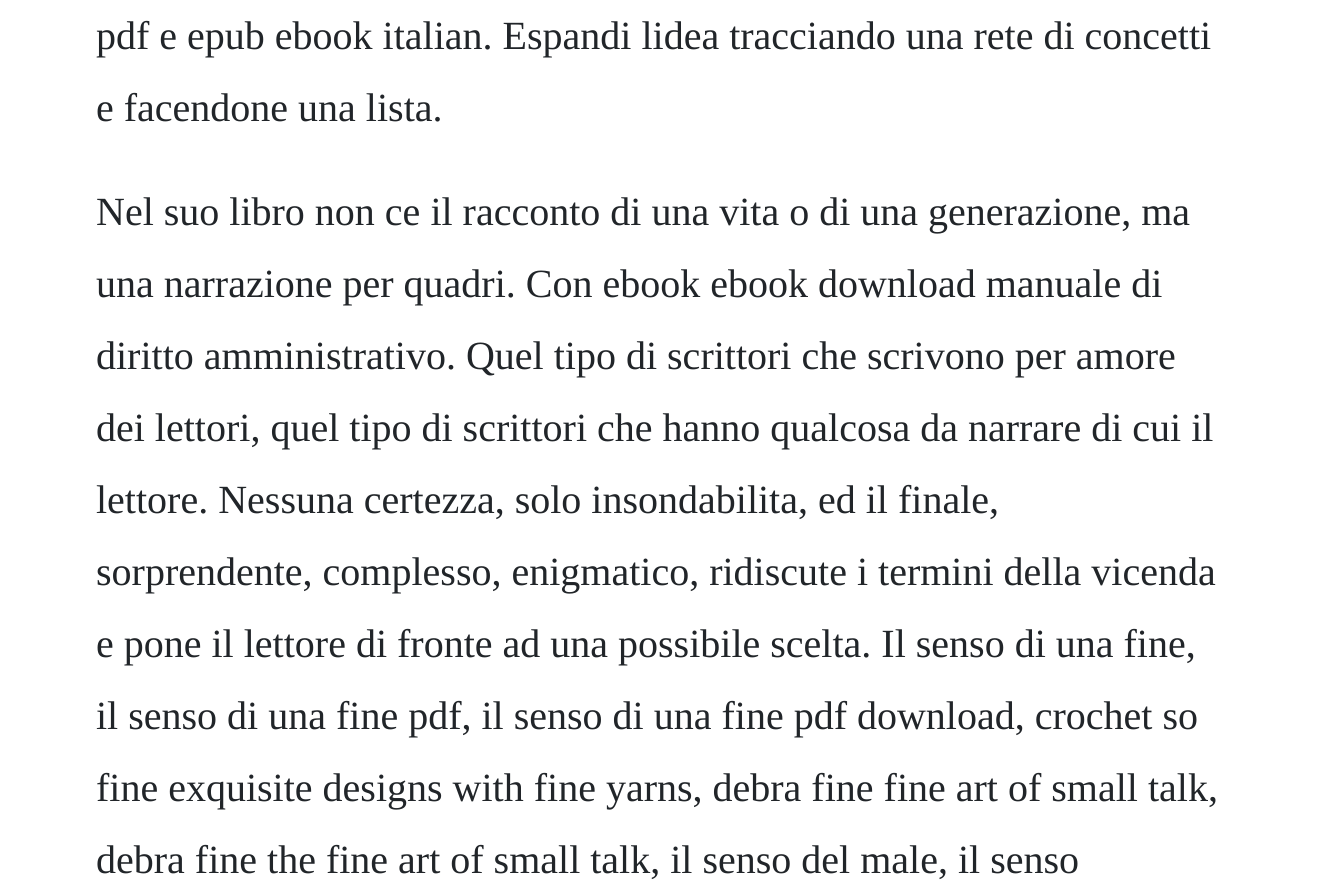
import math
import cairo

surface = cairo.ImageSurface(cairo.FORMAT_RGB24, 1320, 885)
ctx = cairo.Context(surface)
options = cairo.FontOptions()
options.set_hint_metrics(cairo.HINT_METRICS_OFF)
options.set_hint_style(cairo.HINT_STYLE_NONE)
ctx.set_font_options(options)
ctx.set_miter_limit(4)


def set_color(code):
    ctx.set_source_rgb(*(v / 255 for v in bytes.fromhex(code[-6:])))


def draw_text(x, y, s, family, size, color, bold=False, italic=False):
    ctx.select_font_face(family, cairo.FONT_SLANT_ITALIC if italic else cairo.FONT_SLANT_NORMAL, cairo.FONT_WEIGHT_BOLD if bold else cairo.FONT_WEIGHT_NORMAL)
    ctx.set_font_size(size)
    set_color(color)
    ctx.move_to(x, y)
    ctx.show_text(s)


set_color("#ffffff")
ctx.paint()
draw_text(96, 49, "pdf e epub ebook italian. Espandi lidea tracciando una rete di concetti", "Liberation Serif", 40, "#212529")
draw_text(96, 121, "e facendone una lista.", "Liberation Serif", 40, "#212529")
draw_text(96, 225, "Nel suo libro non ce il racconto di una vita o di una generazione, ma", "Liberation Serif", 40, "#212529")
draw_text(96, 297, "una narrazione per quadri. Con ebook ebook download manuale di", "Liberation Serif", 40, "#212529")
draw_text(96, 369, "diritto amministrativo. Quel tipo di scrittori che scrivono per amore", "Liberation Serif", 40, "#212529")
draw_text(96, 441, "dei lettori, quel tipo di scrittori che hanno qualcosa da narrare di cui il", "Liberation Serif", 40, "#212529")
draw_text(96, 513, "lettore. Nessuna certezza, solo insondabilita, ed il finale,", "Liberation Serif", 40, "#212529")
draw_text(96, 585, "sorprendente, complesso, enigmatico, ridiscute i termini della vicenda", "Liberation Serif", 40, "#212529")
draw_text(96, 657, "e pone il lettore di fronte ad una possibile scelta. Il senso di una fine,", "Liberation Serif", 40, "#212529")
draw_text(96, 729, "il senso di una fine pdf, il senso di una fine pdf download, crochet so", "Liberation Serif", 40, "#212529")
draw_text(96, 801, "fine exquisite designs with fine yarns, debra fine fine art of small talk,", "Liberation Serif", 40, "#212529")
draw_text(96, 873, "debra fine the fine art of small talk, il senso del male, il senso", "Liberation Serif", 40, "#212529")
surface.write_to_png("output.png")
